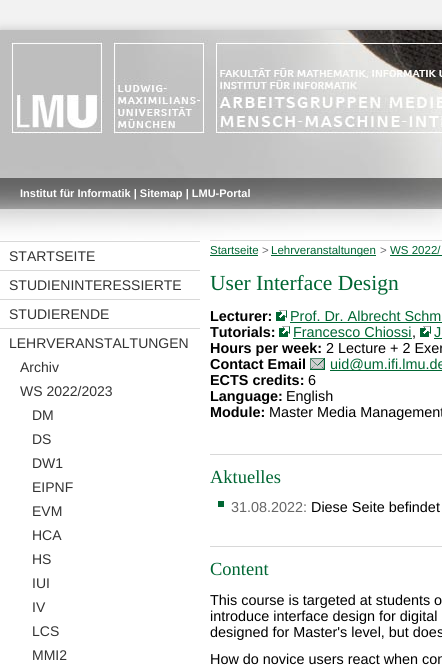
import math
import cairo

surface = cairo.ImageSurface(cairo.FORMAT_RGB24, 442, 665)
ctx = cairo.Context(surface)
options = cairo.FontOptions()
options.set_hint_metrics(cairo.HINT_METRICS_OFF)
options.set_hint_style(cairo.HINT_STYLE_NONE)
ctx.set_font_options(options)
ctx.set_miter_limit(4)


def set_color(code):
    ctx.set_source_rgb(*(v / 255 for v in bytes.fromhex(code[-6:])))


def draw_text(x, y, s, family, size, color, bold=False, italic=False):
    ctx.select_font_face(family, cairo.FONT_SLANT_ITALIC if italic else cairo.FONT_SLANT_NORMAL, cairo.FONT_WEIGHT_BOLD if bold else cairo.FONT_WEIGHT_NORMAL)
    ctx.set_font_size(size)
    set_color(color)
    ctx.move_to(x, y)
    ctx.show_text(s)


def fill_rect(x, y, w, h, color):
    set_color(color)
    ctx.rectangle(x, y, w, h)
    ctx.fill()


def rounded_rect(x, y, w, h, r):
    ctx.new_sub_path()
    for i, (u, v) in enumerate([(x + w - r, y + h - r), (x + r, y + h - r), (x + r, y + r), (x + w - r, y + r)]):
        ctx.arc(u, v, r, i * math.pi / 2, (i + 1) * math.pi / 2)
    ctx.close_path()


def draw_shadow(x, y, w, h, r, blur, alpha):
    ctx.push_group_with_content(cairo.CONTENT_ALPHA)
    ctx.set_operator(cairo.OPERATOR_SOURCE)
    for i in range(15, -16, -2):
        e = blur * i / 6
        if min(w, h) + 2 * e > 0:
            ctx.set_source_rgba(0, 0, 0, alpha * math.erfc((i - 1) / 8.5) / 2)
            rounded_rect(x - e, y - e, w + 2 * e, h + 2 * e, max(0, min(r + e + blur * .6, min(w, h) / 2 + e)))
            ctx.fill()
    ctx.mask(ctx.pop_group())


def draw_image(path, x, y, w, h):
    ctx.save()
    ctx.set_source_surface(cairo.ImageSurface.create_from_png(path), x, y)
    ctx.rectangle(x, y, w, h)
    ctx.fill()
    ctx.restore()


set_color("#f2f2f2")
ctx.paint()
set_color("#c3c3c3")
draw_shadow(0, 30, 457, 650, 0, 5, 1)
fill_rect(0, 240, 442, 425, "#ffffff")
draw_image("assets/img1.png", 0, 30, 442, 210)
draw_text(20, 197, "Institut für Informatik | Sitemap | LMU-Portal", "Liberation Sans", 11, "#ffffff", bold=True)
fill_rect(0, 241, 200, 1, "#d8d8d8")
draw_text(9, 261, "STARTSEITE", "Liberation Sans", 14, "#333333")
fill_rect(0, 270, 200, 1, "#d8d8d8")
draw_text(9, 290, "STUDIENINTERESSIERTE", "Liberation Sans", 14, "#333333")
fill_rect(0, 299, 200, 1, "#d8d8d8")
draw_text(9, 319, "STUDIERENDE", "Liberation Sans", 14, "#333333")
fill_rect(0, 328, 200, 1, "#d8d8d8")
draw_text(9, 348, "LEHRVERANSTALTUNGEN", "Liberation Sans", 14, "#333333")
draw_text(20, 372, "Archiv", "Liberation Sans", 14, "#333333")
draw_text(20, 396, "WS 2022/2023", "Liberation Sans", 14, "#333333")
draw_text(32, 420, "DM", "Liberation Sans", 14, "#333333")
draw_text(32, 444, "DS", "Liberation Sans", 14, "#333333")
draw_text(32, 468, "DW1", "Liberation Sans", 14, "#333333")
draw_text(32, 492, "EIPNF", "Liberation Sans", 14, "#333333")
draw_text(32, 516, "EVM", "Liberation Sans", 14, "#333333")
draw_text(32, 540, "HCA", "Liberation Sans", 14, "#333333")
draw_text(32, 564, "HS", "Liberation Sans", 14, "#333333")
draw_text(32, 588, "IUI", "Liberation Sans", 14, "#333333")
draw_text(32, 612, "IV", "Liberation Sans", 14, "#333333")
draw_text(32, 636, "LCS", "Liberation Sans", 14, "#333333")
draw_text(32, 660, "MMI2", "Liberation Sans", 14, "#333333")
fill_rect(210, 240, 232, 1, "#d8d8d8")
draw_text(210, 254, "Startseite", "Liberation Sans", 11.5, "#006633")
fill_rect(210, 255, 48, 1, "#006633")
draw_text(262, 254, ">", "Liberation Sans", 11.5, "#6b6c6f")
fill_rect(271, 255, 105, 1, "#006633")
draw_text(271, 254, "Lehrveranstaltungen", "Liberation Sans", 11.5, "#006633")
draw_text(380, 254, ">", "Liberation Sans", 11.5, "#6b6c6f")
draw_text(390, 254, "WS 2022/", "Liberation Sans", 11.5, "#006633")
fill_rect(390, 255, 52, 1, "#006633")
draw_text(210, 290, "User Interface Design", "Liberation Serif", 21.5, "#006633")
draw_text(210, 321, "Lecturer:", "Liberation Sans", 14.4, "#000000", bold=True)
draw_image("assets/img2.png", 276, 310, 11, 11)
draw_text(290, 321, "Prof. Dr. Albrecht Schm", "Liberation Sans", 14.4, "#006633")
fill_rect(290, 322, 152, 1, "#006633")
draw_text(210, 337, "Tutorials:", "Liberation Sans", 14.4, "#000000", bold=True)
draw_image("assets/img2.png", 279, 326, 11, 11)
draw_text(293, 337, "Francesco Chiossi", "Liberation Sans", 14.4, "#006633")
fill_rect(293, 338, 119, 1, "#006633")
draw_text(412, 337, ",", "Liberation Sans", 14.4, "#000000")
draw_image("assets/img2.png", 420, 326, 11, 11)
draw_text(434, 337, "J", "Liberation Sans", 14.4, "#006633")
fill_rect(434, 338, 8, 1, "#006633")
draw_text(210, 353, "Hours per week:", "Liberation Sans", 14.4, "#000000", bold=True)
draw_text(326, 353, "2 Lecture + 2 Exer", "Liberation Sans", 14.4, "#000000")
draw_text(210, 369, "Contact Email", "Liberation Sans", 14.4, "#000000", bold=True)
draw_image("assets/img3.png", 310, 358, 15, 12)
fill_rect(330, 370, 112, 1, "#006633")
draw_text(330, 369, "uid@um.ifi.lmu.de", "Liberation Sans", 14.4, "#006633")
draw_text(210, 385, "ECTS credits:", "Liberation Sans", 14.4, "#000000", bold=True)
draw_text(308, 385, "6", "Liberation Sans", 14.4, "#000000")
draw_text(210, 401, "Language:", "Liberation Sans", 14.4, "#000000", bold=True)
draw_text(286, 401, "English", "Liberation Sans", 14.4, "#000000")
draw_text(210, 417, "Module:", "Liberation Sans", 14.4, "#000000", bold=True)
draw_text(269, 417, "Master Media Management", "Liberation Sans", 14.4, "#000000")
fill_rect(210, 454, 232, 1, "#d8d8d8")
draw_text(210, 483, "Aktuelles", "Liberation Serif", 18.5, "#006633")
fill_rect(218, 501, 6, 6, "#006633")
draw_text(231, 512, "31.08.2022:", "Liberation Sans", 14.4, "#666666")
draw_text(311, 512, "Diese Seite befindet", "Liberation Sans", 14.4, "#000000")
fill_rect(210, 546, 232, 1, "#d8d8d8")
draw_text(210, 575, "Content", "Liberation Serif", 18.5, "#006633")
draw_text(210, 605, "This course is targeted at students o", "Liberation Sans", 14.4, "#000000")
draw_text(210, 621, "introduce interface design for digital", "Liberation Sans", 14.4, "#000000")
draw_text(210, 637, "designed for Master's level, but does", "Liberation Sans", 14.4, "#000000")
draw_text(210, 664, "How do novice users react when con", "Liberation Sans", 14.4, "#000000")
surface.write_to_png("output.png")
